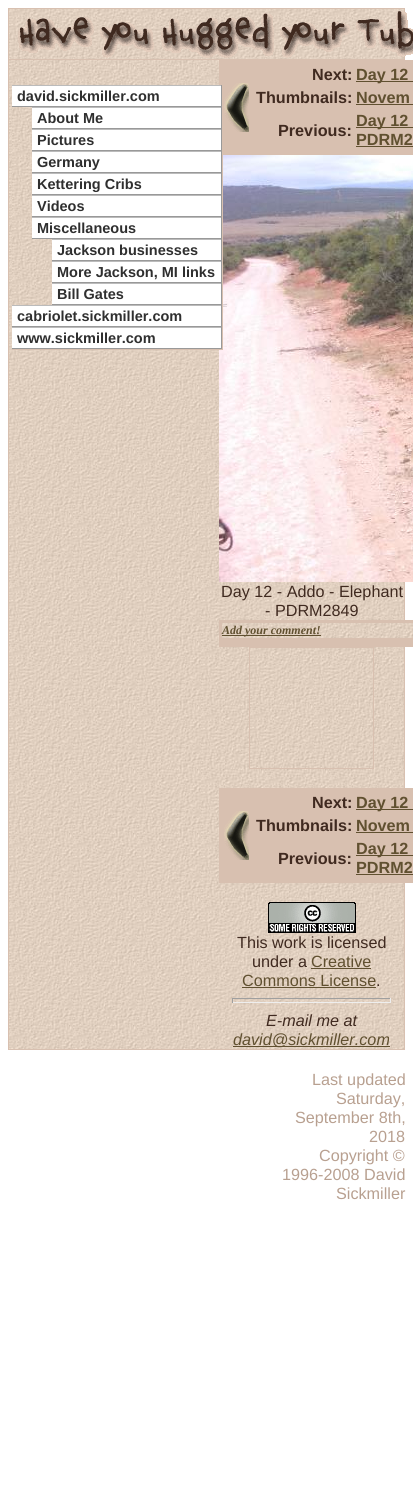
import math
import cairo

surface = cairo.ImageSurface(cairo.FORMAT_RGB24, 413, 1503)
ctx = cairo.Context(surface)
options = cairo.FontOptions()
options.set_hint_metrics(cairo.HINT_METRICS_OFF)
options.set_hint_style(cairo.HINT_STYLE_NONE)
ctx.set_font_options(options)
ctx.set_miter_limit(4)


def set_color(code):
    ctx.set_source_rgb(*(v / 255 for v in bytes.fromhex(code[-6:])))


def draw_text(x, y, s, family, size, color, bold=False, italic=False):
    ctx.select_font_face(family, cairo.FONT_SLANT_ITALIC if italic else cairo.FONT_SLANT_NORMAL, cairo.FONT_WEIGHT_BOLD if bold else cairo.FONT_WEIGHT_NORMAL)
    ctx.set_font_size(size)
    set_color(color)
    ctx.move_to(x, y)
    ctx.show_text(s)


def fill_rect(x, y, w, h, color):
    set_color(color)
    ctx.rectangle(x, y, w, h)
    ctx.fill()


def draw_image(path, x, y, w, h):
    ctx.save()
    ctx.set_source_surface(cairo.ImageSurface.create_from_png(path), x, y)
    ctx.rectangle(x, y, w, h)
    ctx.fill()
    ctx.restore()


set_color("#ffffff")
ctx.paint()
draw_image("assets/img2.png", 9, 9, 395, 1040)
ctx.rectangle(8.5, 8.5, 396, 1041)
set_color("#d8c0b0")
ctx.set_line_width(1)
ctx.stroke()
draw_image("assets/img1.png", 12, 107, 40, 198)
draw_image("assets/img5.png", 219, 155, 194, 427)
fill_rect(222, 155, 1, 195, "#d8c0b0")
fill_rect(12, 349, 211, 1, "#d8c0b0")
ctx.rectangle(219.5, 60.5, 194, 94)
ctx.stroke()
fill_rect(220, 61, 193, 93, "#d8c0b0")
fill_rect(12, 86, 209, 20, "#ffffff")
fill_rect(12, 85, 210, 1, "#bbbbbb")
fill_rect(221, 85, 1, 22, "#999999")
fill_rect(12, 106, 210, 1, "#999999")
draw_text(17, 101, "david.sickmiller.com", "Liberation Sans", 14.5, "#2f2f2f", bold=True)
fill_rect(32, 108, 189, 20, "#ffffff")
fill_rect(32, 107, 190, 1, "#bbbbbb")
fill_rect(221, 107, 1, 22, "#999999")
fill_rect(32, 128, 190, 1, "#999999")
draw_text(37, 123, "About Me", "Liberation Sans", 14.5, "#2f2f2f", bold=True)
fill_rect(32, 130, 189, 20, "#ffffff")
fill_rect(32, 129, 190, 1, "#bbbbbb")
fill_rect(221, 129, 1, 22, "#999999")
fill_rect(32, 150, 190, 1, "#999999")
draw_text(37, 145, "Pictures", "Liberation Sans", 14.5, "#2f2f2f", bold=True)
fill_rect(32, 152, 189, 20, "#ffffff")
fill_rect(32, 151, 190, 1, "#bbbbbb")
fill_rect(221, 151, 1, 22, "#999999")
fill_rect(32, 172, 190, 1, "#999999")
draw_text(37, 167, "Germany", "Liberation Sans", 14.5, "#2f2f2f", bold=True)
fill_rect(32, 174, 189, 20, "#ffffff")
fill_rect(32, 173, 190, 1, "#bbbbbb")
fill_rect(221, 173, 1, 22, "#999999")
fill_rect(32, 194, 190, 1, "#999999")
draw_text(37, 189, "Kettering Cribs", "Liberation Sans", 14.5, "#2f2f2f", bold=True)
fill_rect(32, 196, 189, 20, "#ffffff")
fill_rect(32, 195, 190, 1, "#bbbbbb")
fill_rect(221, 195, 1, 22, "#999999")
fill_rect(32, 216, 190, 1, "#999999")
draw_text(37, 211, "Videos", "Liberation Sans", 14.5, "#2f2f2f", bold=True)
fill_rect(32, 218, 189, 20, "#ffffff")
fill_rect(32, 217, 190, 1, "#bbbbbb")
fill_rect(221, 217, 1, 22, "#999999")
fill_rect(32, 238, 190, 1, "#999999")
draw_text(37, 233, "Miscellaneous", "Liberation Sans", 14.5, "#2f2f2f", bold=True)
fill_rect(52, 240, 169, 20, "#ffffff")
fill_rect(52, 239, 170, 1, "#bbbbbb")
fill_rect(221, 239, 1, 22, "#999999")
fill_rect(52, 260, 170, 1, "#999999")
draw_text(57, 255, "Jackson businesses", "Liberation Sans", 14.5, "#2f2f2f", bold=True)
fill_rect(52, 262, 169, 20, "#ffffff")
fill_rect(52, 261, 170, 1, "#bbbbbb")
fill_rect(221, 261, 1, 22, "#999999")
fill_rect(52, 282, 170, 1, "#999999")
draw_text(57, 277, "More Jackson, MI links", "Liberation Sans", 14.5, "#2f2f2f", bold=True)
fill_rect(52, 284, 169, 20, "#ffffff")
fill_rect(52, 283, 170, 1, "#bbbbbb")
fill_rect(221, 283, 1, 22, "#999999")
fill_rect(52, 304, 170, 1, "#999999")
draw_text(57, 299, "Bill Gates", "Liberation Sans", 14.5, "#2f2f2f", bold=True)
fill_rect(12, 306, 209, 20, "#ffffff")
fill_rect(12, 305, 210, 1, "#bbbbbb")
fill_rect(221, 305, 1, 22, "#999999")
fill_rect(12, 326, 210, 1, "#999999")
draw_text(17, 321, "cabriolet.sickmiller.com", "Liberation Sans", 14.5, "#2f2f2f", bold=True)
fill_rect(12, 328, 209, 20, "#ffffff")
fill_rect(12, 327, 210, 1, "#bbbbbb")
fill_rect(221, 327, 1, 22, "#999999")
fill_rect(12, 348, 210, 1, "#999999")
draw_text(17, 343, "www.sickmiller.com", "Liberation Sans", 14.5, "#2f2f2f", bold=True)
fill_rect(9, 59, 395, 1, "#d8c0b0")
draw_image("assets/img3.png", 18, 11, 395, 47)
draw_text(312, 80, "Next:", "Liberation Sans", 16.2, "#402a20", bold=True)
fill_rect(356, 81, 57, 1, "#605030")
draw_text(356, 80, "Day 12", "Liberation Sans", 16.2, "#605030", bold=True)
draw_image("assets/img4.png", 224, 83, 25, 49)
draw_text(256, 103, "Thumbnails:", "Liberation Sans", 16.2, "#402a20", bold=True)
draw_text(356, 103, "Novem", "Liberation Sans", 16.2, "#605030", bold=True)
fill_rect(356, 104, 57, 1, "#605030")
draw_text(278, 136, "Previous:", "Liberation Sans", 16.2, "#402a20", bold=True)
fill_rect(356, 127, 57, 1, "#605030")
draw_text(356, 126, "Day 12", "Liberation Sans", 16.2, "#605030", bold=True)
draw_text(356, 145, "PDRM2", "Liberation Sans", 16.2, "#605030", bold=True)
fill_rect(356, 146, 57, 1, "#605030")
draw_text(221, 597, "Day 12 - Addo - Elephant", "Liberation Sans", 16.2, "#402a20")
draw_text(265, 616, "- PDRM2849", "Liberation Sans", 16.2, "#402a20")
ctx.rectangle(219.5, 620.5, 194, 26)
set_color("#d8c0b0")
ctx.stroke()
fill_rect(220, 621, 193, 25, "#d8c0b0")
draw_image("assets/img6.png", 222, 623, 191, 15)
fill_rect(222, 635, 99, 1, "#605030")
draw_text(222, 634, "Add your comment!", "Liberation Serif", 12, "#605030", bold=True, italic=True)
draw_image("assets/img7.png", 250, 648, 123, 120)
ctx.rectangle(249.5, 647.5, 124, 121)
set_color("#d8c0b0")
ctx.stroke()
ctx.rectangle(219.5, 788.5, 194, 94)
ctx.stroke()
fill_rect(220, 789, 193, 93, "#d8c0b0")
draw_text(312, 808, "Next:", "Liberation Sans", 16.2, "#402a20", bold=True)
fill_rect(356, 809, 57, 1, "#605030")
draw_text(356, 808, "Day 12", "Liberation Sans", 16.2, "#605030", bold=True)
draw_image("assets/img4.png", 224, 811, 25, 49)
draw_text(256, 831, "Thumbnails:", "Liberation Sans", 16.2, "#402a20", bold=True)
draw_text(356, 831, "Novem", "Liberation Sans", 16.2, "#605030", bold=True)
fill_rect(356, 832, 57, 1, "#605030")
draw_text(278, 864, "Previous:", "Liberation Sans", 16.2, "#402a20", bold=True)
fill_rect(356, 855, 57, 1, "#605030")
draw_text(356, 854, "Day 12", "Liberation Sans", 16.2, "#605030", bold=True)
draw_text(356, 873, "PDRM2", "Liberation Sans", 16.2, "#605030", bold=True)
fill_rect(356, 874, 57, 1, "#605030")
draw_image("assets/img8.png", 268, 902, 88, 31)
draw_text(237, 948, "This work is licensed", "Liberation Sans", 16.2, "#402a20")
draw_text(252, 967, "under a", "Liberation Sans", 16.2, "#402a20")
draw_text(311, 967, "Creative", "Liberation Sans", 16.2, "#605030")
fill_rect(311, 968, 60, 1, "#605030")
draw_text(242, 986, "Commons License", "Liberation Sans", 16.2, "#605030")
fill_rect(242, 987, 134, 1, "#605030")
draw_text(376, 986, ".", "Liberation Sans", 16.2, "#402a20")
fill_rect(232, 998, 159, 1, "#9f9f9f")
fill_rect(390, 998, 1, 5, "#eeeeee")
fill_rect(232, 1002, 159, 1, "#eeeeee")
fill_rect(232, 998, 1, 5, "#9f9f9f")
draw_text(266, 1026, "E-mail me at", "Liberation Sans", 16.2, "#402a20", italic=True)
fill_rect(233, 1046, 157, 1, "#605030")
draw_text(233, 1045, "david@sickmiller.com", "Liberation Sans", 16.2, "#605030", italic=True)
draw_text(312, 1085, "Last updated", "Liberation Sans", 16.2, "#b8a090")
draw_text(336, 1104, "Saturday,", "Liberation Sans", 16.2, "#b8a090")
draw_text(295, 1123, "September 8th,", "Liberation Sans", 16.2, "#b8a090")
draw_text(369, 1142, "2018", "Liberation Sans", 16.2, "#b8a090")
draw_text(319, 1161, "Copyright ©", "Liberation Sans", 16.2, "#b8a090")
draw_text(282, 1180, "1996-2008 David", "Liberation Sans", 16.2, "#b8a090")
draw_text(336, 1199, "Sickmiller", "Liberation Sans", 16.2, "#b8a090")
surface.write_to_png("output.png")
